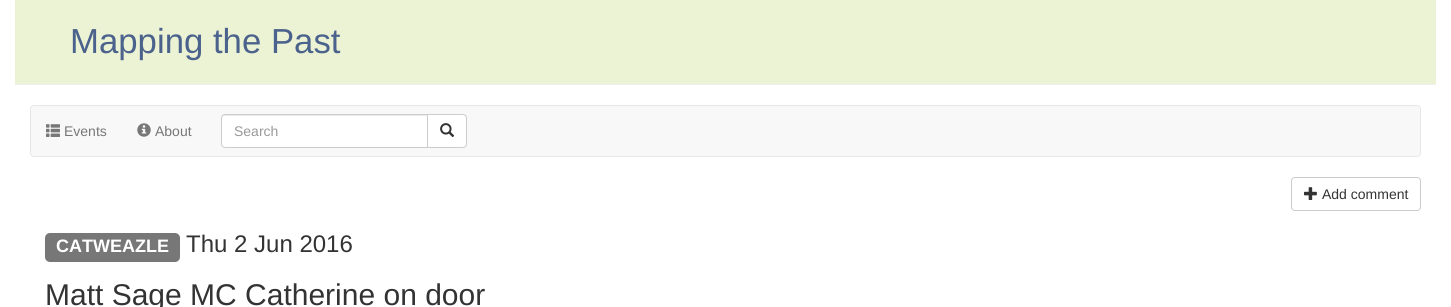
import math
import cairo

surface = cairo.ImageSurface(cairo.FORMAT_RGB24, 1451, 307)
ctx = cairo.Context(surface)
options = cairo.FontOptions()
options.set_hint_metrics(cairo.HINT_METRICS_OFF)
options.set_hint_style(cairo.HINT_STYLE_NONE)
ctx.set_font_options(options)
ctx.set_miter_limit(4)


def set_color(code):
    ctx.set_source_rgb(*(v / 255 for v in bytes.fromhex(code[-6:])))


def draw_text(x, y, s, family, size, color, bold=False, italic=False):
    ctx.select_font_face(family, cairo.FONT_SLANT_ITALIC if italic else cairo.FONT_SLANT_NORMAL, cairo.FONT_WEIGHT_BOLD if bold else cairo.FONT_WEIGHT_NORMAL)
    ctx.set_font_size(size)
    set_color(color)
    ctx.move_to(x, y)
    ctx.show_text(s)


def fill_rect(x, y, w, h, color):
    set_color(color)
    ctx.rectangle(x, y, w, h)
    ctx.fill()


def rounded_rect(x, y, w, h, r):
    ctx.new_sub_path()
    for i, (u, v) in enumerate([(x + w - r, y + h - r), (x + r, y + h - r), (x + r, y + r), (x + w - r, y + r)]):
        ctx.arc(u, v, r, i * math.pi / 2, (i + 1) * math.pi / 2)
    ctx.close_path()


def draw_image(path, x, y, w, h):
    ctx.save()
    ctx.set_source_surface(cairo.ImageSurface.create_from_png(path), x, y)
    ctx.rectangle(x, y, w, h)
    ctx.fill()
    ctx.restore()


set_color("#ffffff")
ctx.paint()
fill_rect(15, 0, 1421, 84, "#ecf2d4")
fill_rect(15, 84, 1421, 1, "#eeeeee")
draw_text(70, 53, "Mapping the Past", "Liberation Sans", 34.75, "#4b638c")
set_color("#f8f8f8")
rounded_rect(30.5, 105.5, 1390, 51, 3.5)
ctx.fill_preserve()
set_color("#e7e7e7")
ctx.set_line_width(1)
ctx.stroke()
draw_image("assets/img1.png", 46, 124, 14, 13)
draw_text(64, 136, "Events", "Liberation Sans", 14, "#777777")
draw_image("assets/img2.png", 137, 123, 14, 14)
draw_text(155, 136, "About", "Liberation Sans", 14, "#777777")
set_color("#ffffff")
ctx.new_path()
ctx.move_to(225, 114)
ctx.line_to(428, 114)
ctx.line_to(428, 148)
ctx.line_to(225, 148)
ctx.curve_to(223, 148, 221, 146, 221, 144)
ctx.line_to(221, 118)
ctx.curve_to(221, 116, 223, 114, 225, 114)
ctx.close_path()
ctx.fill()
set_color("#ececec")
ctx.new_path()
ctx.move_to(225, 116)
ctx.line_to(427, 116)
ctx.line_to(427, 115)
ctx.line_to(224, 115)
ctx.curve_to(222, 116, 222, 117, 222, 119)
ctx.curve_to(222, 117, 223, 116, 225, 116)
ctx.close_path()
ctx.fill()
ctx.new_path()
ctx.move_to(225, 114.5)
ctx.line_to(427.5, 114.5)
ctx.line_to(427.5, 147.5)
ctx.line_to(225, 147.5)
ctx.curve_to(223, 147.5, 221.5, 146, 221.5, 144)
ctx.line_to(221.5, 118)
ctx.curve_to(221.5, 116, 223, 114.5, 225, 114.5)
ctx.close_path()
set_color("#cccccc")
ctx.stroke()
draw_text(234, 136, "Search", "Liberation Sans", 14, "#999999")
set_color("#ffffff")
ctx.new_path()
ctx.move_to(427.5, 114.5)
ctx.line_to(463, 114.5)
ctx.curve_to(465, 114.5, 466.5, 116, 466.5, 118)
ctx.line_to(466.5, 144)
ctx.curve_to(466.5, 146, 465, 147.5, 463, 147.5)
ctx.line_to(427.5, 147.5)
ctx.close_path()
ctx.fill_preserve()
set_color("#cccccc")
ctx.stroke()
draw_image("assets/img3.png", 440, 123, 15, 14)
rounded_rect(1291.5, 177.5, 129, 33, 3.5)
ctx.stroke()
draw_image("assets/img4.png", 1304, 187, 13, 13)
draw_text(1322, 199, "Add comment", "Liberation Sans", 14, "#333333")
set_color("#777777")
rounded_rect(45, 233, 135, 29, 5)
ctx.fill()
draw_text(56, 252, "CATWEAZLE", "Liberation Sans", 18, "#ffffff", bold=True)
draw_text(186, 252, "Thu 2 Jun 2016", "Liberation Sans", 24, "#333333")
draw_text(45, 305, "Matt Sage MC Catherine on door", "Liberation Sans", 30, "#333333")
surface.write_to_png("output.png")
